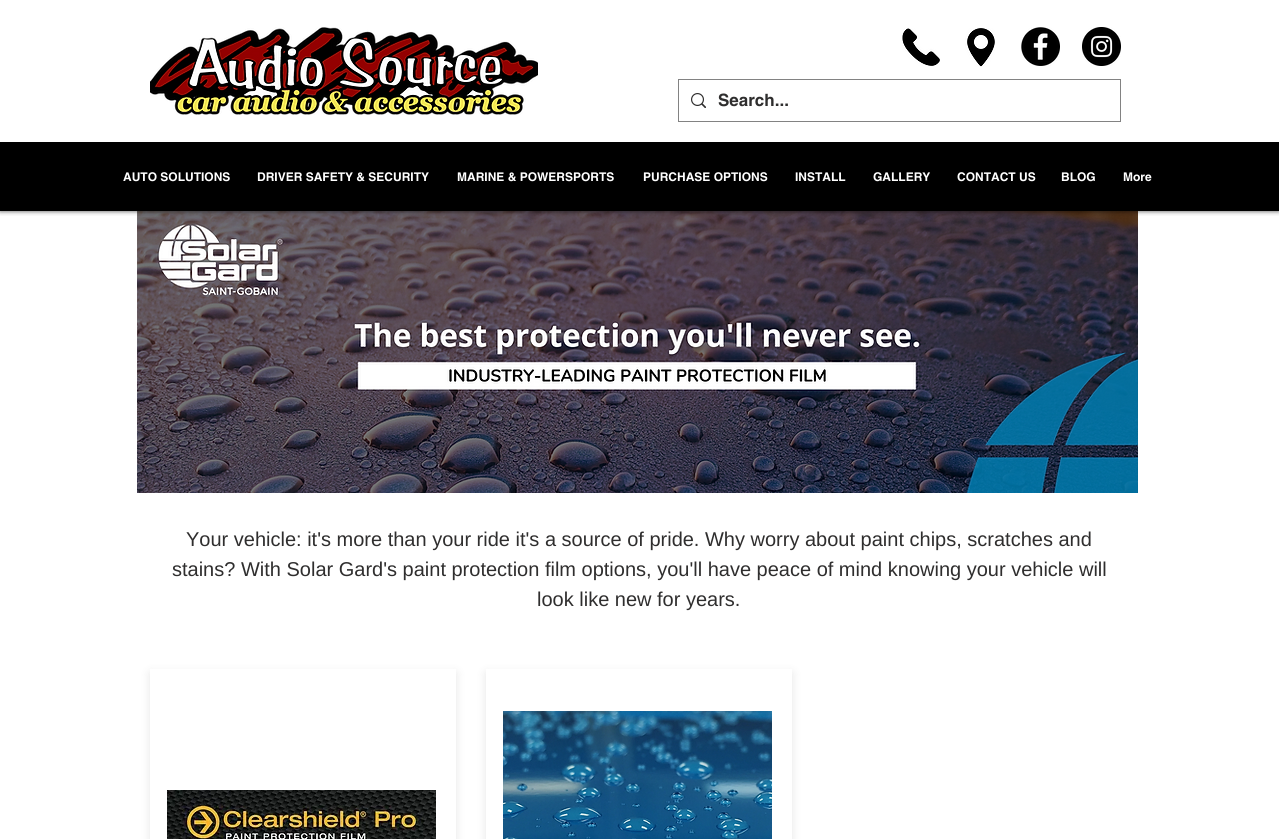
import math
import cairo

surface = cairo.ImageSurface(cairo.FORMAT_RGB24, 1279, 839)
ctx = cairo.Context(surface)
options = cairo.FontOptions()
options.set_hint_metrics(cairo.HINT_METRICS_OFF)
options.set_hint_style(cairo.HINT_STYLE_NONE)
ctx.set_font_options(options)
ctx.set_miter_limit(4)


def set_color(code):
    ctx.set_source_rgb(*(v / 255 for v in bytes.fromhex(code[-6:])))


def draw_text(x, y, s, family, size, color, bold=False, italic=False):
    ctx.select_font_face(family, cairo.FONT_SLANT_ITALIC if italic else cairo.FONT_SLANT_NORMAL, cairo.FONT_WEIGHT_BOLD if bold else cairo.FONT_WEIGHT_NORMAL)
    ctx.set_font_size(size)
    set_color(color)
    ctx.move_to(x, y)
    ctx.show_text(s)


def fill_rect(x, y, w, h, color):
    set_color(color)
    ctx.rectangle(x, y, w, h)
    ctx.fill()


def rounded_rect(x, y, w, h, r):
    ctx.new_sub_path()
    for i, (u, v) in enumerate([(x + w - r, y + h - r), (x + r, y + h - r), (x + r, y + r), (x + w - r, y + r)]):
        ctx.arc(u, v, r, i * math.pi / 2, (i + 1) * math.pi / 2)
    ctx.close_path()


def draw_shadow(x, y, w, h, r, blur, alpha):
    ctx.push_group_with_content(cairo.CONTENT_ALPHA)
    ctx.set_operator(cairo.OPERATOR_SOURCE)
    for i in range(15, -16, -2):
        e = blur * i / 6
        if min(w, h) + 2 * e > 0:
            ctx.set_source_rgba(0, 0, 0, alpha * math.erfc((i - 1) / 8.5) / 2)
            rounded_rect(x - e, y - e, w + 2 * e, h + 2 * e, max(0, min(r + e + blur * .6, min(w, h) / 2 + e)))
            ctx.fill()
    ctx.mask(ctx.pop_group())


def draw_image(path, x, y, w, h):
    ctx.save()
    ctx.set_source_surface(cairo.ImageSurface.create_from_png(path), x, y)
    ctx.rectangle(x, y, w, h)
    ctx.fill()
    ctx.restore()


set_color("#ffffff")
ctx.paint()
draw_image("assets/img7.png", 137, 211, 1001, 282)
ctx.save()
ctx.rectangle(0, 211, 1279, 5)
ctx.clip()
set_color("#000000")
draw_shadow(0, 0, 1279, 211, 0, 2.5, 0.7)
ctx.restore()
draw_image("assets/img1.png", 150, 27, 388, 88)
draw_image("assets/img2.png", 902, 28, 38, 38)
draw_image("assets/img3.png", 965, 28, 30, 39)
draw_image("assets/img4.png", 1021, 27, 39, 39)
draw_image("assets/img5.png", 1082, 27, 39, 39)
ctx.rectangle(678.5, 79.5, 442, 42)
set_color("#828282")
ctx.set_line_width(1)
ctx.stroke()
draw_image("assets/img6.png", 691, 93, 15, 15)
draw_text(718, 106, "Search...", "helvetica", 17, "#2f2e2e", bold=True)
fill_rect(0, 142, 1279, 69, "#000000")
draw_text(123, 181, "AUTO SOLUTIONS", "helvetica", 12, "#ffffff", bold=True)
draw_text(257, 181, "DRIVER SAFETY & SECURITY", "helvetica", 12, "#ffffff", bold=True)
draw_text(457, 181, "MARINE & POWERSPORTS", "helvetica", 12, "#ffffff", bold=True)
draw_text(643, 181, "PURCHASE OPTIONS", "helvetica", 12, "#ffffff", bold=True)
draw_text(795, 181, "INSTALL", "helvetica", 12, "#ffffff", bold=True)
draw_text(873, 181, "GALLERY", "helvetica", 12, "#ffffff", bold=True)
draw_text(957, 181, "CONTACT US", "helvetica", 12, "#ffffff", bold=True)
draw_text(1061, 181, "BLOG", "helvetica", 12, "#ffffff", bold=True)
draw_text(1123, 181, "More", "helvetica", 12, "#ffffff", bold=True)
draw_text(186, 546, "Your vehicle: it's more than your ride it's a source of pride. Why worry about paint chips, scratches and", "Liberation Sans", 20, "#2f2e2e")
draw_text(172, 576, "stains? With Solar Gard's paint protection film options, you'll have peace of mind knowing your vehicle will", "Liberation Sans", 20, "#2f2e2e")
draw_text(537, 606, "look like new for years.", "Liberation Sans", 20, "#2f2e2e")
ctx.save()
ctx.set_fill_rule(cairo.FILL_RULE_EVEN_ODD)
ctx.new_path()
ctx.move_to(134, 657)
ctx.line_to(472, 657)
ctx.line_to(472, 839)
ctx.line_to(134, 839)
ctx.close_path()
ctx.move_to(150, 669)
ctx.line_to(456, 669)
ctx.line_to(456, 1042)
ctx.line_to(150, 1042)
ctx.close_path()
ctx.clip()
set_color("#000000")
draw_shadow(150, 673, 306, 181, 0, 5, 0.1)
ctx.restore()
draw_image("assets/img8.png", 167, 790, 269, 49)
ctx.save()
ctx.set_fill_rule(cairo.FILL_RULE_EVEN_ODD)
ctx.new_path()
ctx.move_to(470, 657)
ctx.line_to(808, 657)
ctx.line_to(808, 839)
ctx.line_to(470, 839)
ctx.close_path()
ctx.move_to(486, 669)
ctx.line_to(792, 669)
ctx.line_to(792, 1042)
ctx.line_to(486, 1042)
ctx.close_path()
ctx.clip()
set_color("#000000")
draw_shadow(486, 673, 306, 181, 0, 5, 0.1)
ctx.restore()
draw_image("assets/img9.png", 503, 711, 269, 128)
surface.write_to_png("output.png")
